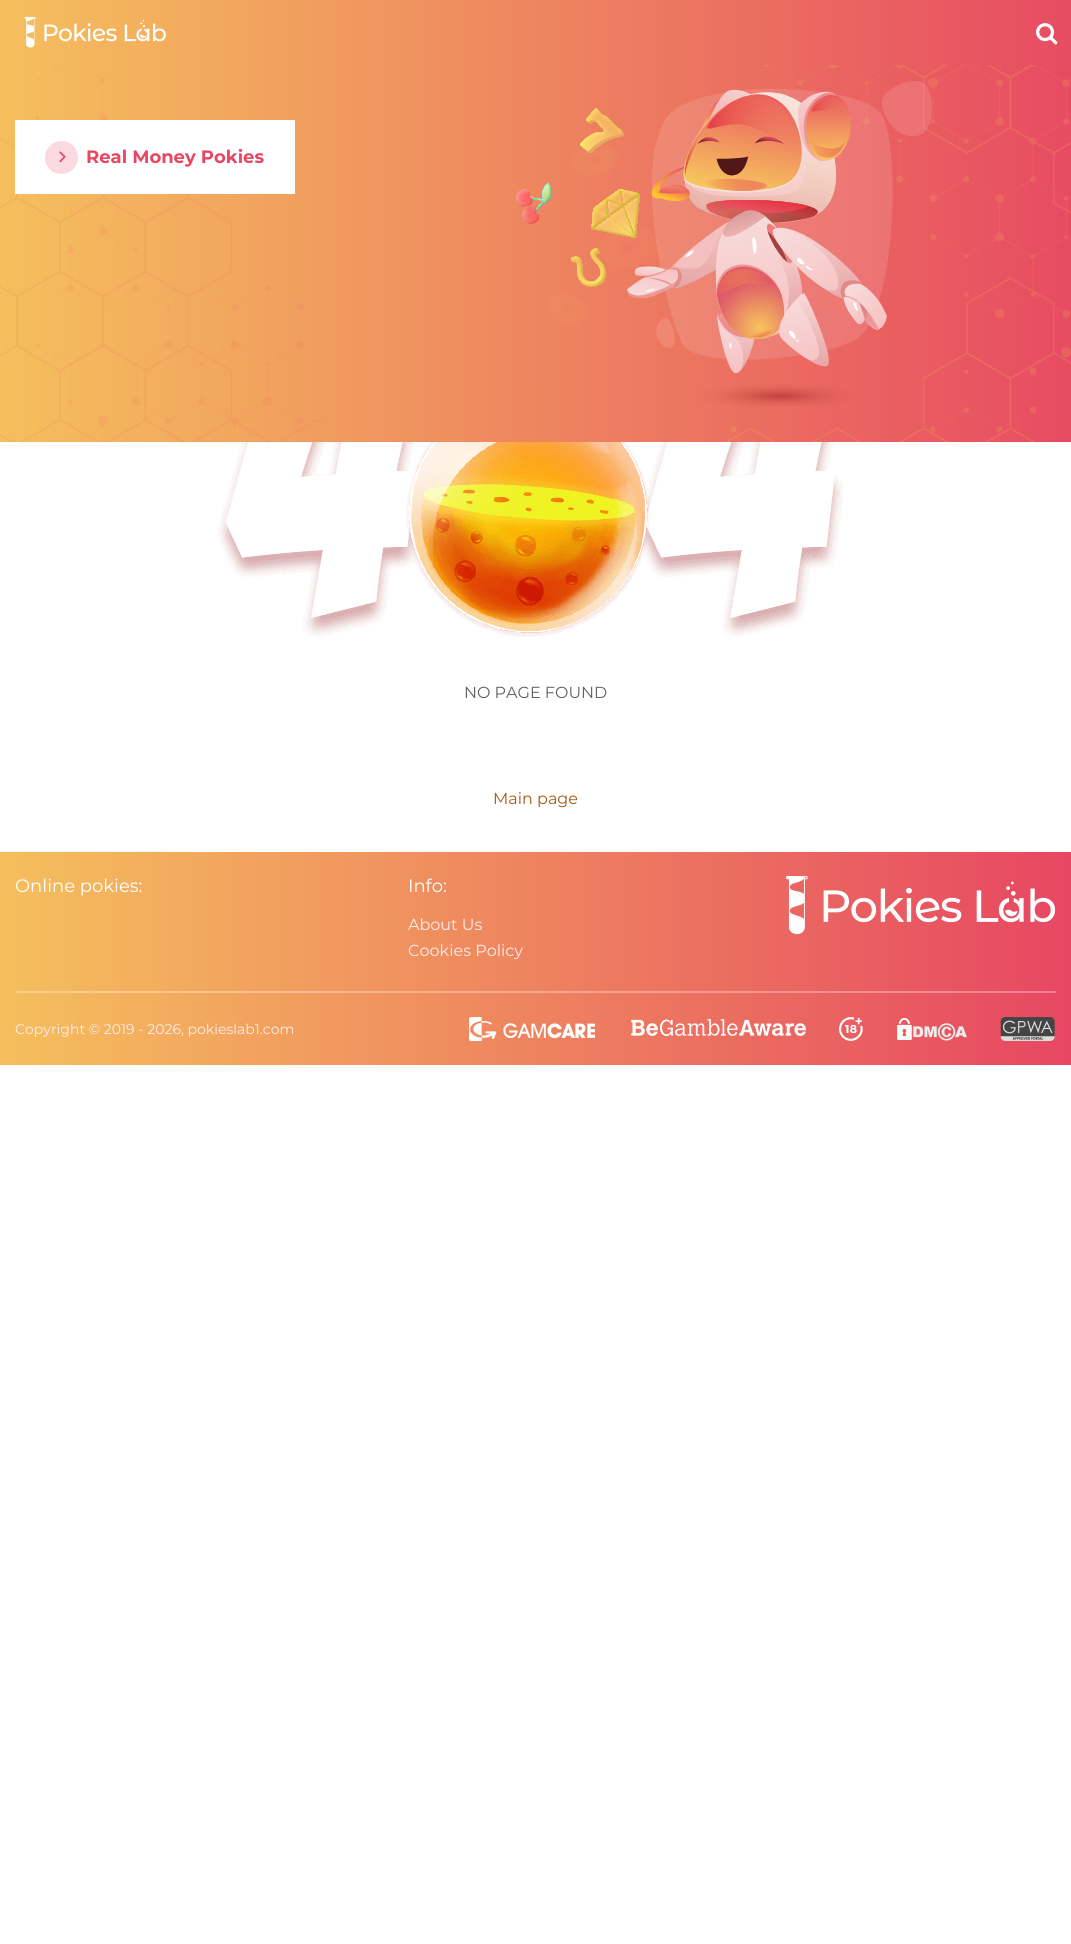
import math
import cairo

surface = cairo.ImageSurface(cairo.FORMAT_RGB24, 1071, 1944)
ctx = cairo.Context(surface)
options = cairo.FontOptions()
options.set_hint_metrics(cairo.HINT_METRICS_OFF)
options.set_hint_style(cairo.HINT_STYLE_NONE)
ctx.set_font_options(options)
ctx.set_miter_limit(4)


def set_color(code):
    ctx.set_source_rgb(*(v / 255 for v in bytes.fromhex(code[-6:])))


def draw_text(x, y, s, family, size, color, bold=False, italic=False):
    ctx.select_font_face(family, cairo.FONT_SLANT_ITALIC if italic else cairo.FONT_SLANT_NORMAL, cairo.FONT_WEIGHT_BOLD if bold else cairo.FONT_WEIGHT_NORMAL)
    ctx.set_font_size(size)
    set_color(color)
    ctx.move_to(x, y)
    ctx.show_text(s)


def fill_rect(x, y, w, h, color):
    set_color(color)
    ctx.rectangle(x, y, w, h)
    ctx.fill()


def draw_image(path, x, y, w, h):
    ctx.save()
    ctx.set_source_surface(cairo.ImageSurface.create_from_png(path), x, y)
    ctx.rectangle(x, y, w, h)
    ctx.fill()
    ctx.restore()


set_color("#ffffff")
ctx.paint()
gradient = cairo.LinearGradient(0, 33, 1071, 32)
gradient.add_color_stop_rgba(0, 0.961, 0.749, 0.365, 1)
gradient.add_color_stop_rgba(1, 0.906, 0.298, 0.384, 1)
ctx.set_source(gradient)
ctx.rectangle(0, 0, 1071, 65)
ctx.fill()
draw_image("assets/img1.png", 24, 17, 142, 31)
draw_image("assets/img2.png", 1036, 23, 22, 22)
gradient = cairo.LinearGradient(0, 254, 1071, 253)
gradient.add_color_stop_rgba(0, 0.961, 0.749, 0.365, 1)
gradient.add_color_stop_rgba(1, 0.906, 0.298, 0.384, 1)
ctx.set_source(gradient)
ctx.rectangle(0, 65, 1071, 377)
ctx.fill()
draw_image("assets/img3.png", 0, 66, 323, 376)
draw_image("assets/img4.png", 726, 65, 345, 377)
draw_image("assets/img5.png", 516, 81, 416, 326)
fill_rect(15, 120, 280, 74, "#ffffff")
set_color("#fadae0")
ctx.arc(61.5, 157.5, 16.5, 0, 2 * math.pi)
ctx.fill()
draw_image("assets/img6.png", 59, 151, 7, 12)
draw_text(86, 163, "Real Money Pokies", "Montserrat", 18, "#e74762", bold=True)
draw_image("assets/img7.png", 218, 442, 626, 197)
draw_text(464, 698, "NO PAGE FOUND", "Montserrat", 16, "#616161")
draw_text(493, 804, "Main page", "Montserrat", 16, "#a35914")
gradient = cairo.LinearGradient(0, 959, 1071, 959)
gradient.add_color_stop_rgba(0, 0.961, 0.749, 0.365, 1)
gradient.add_color_stop_rgba(1, 0.906, 0.278, 0.384, 1)
ctx.set_source(gradient)
ctx.rectangle(0, 852, 1071, 213)
ctx.fill()
gradient = cairo.LinearGradient(0, 959, 1071, 959)
gradient.add_color_stop_rgba(0, 0.973, 0.824, 0.557, 1)
gradient.add_color_stop_rgba(1, 0.933, 0.494, 0.569, 1)
ctx.set_source(gradient)
ctx.rectangle(15, 991, 1041, 2)
ctx.fill()
draw_text(15, 892, "Online pokies:", "Montserrat", 18, "#ffffff")
draw_text(408, 892, "Info:", "Montserrat", 18, "#ffffff")
draw_text(408, 930, "About Us", "Montserrat", 16, "#fdedf0")
draw_text(408, 956, "Cookies Policy", "Montserrat", 16, "#fdedf0")
draw_image("assets/img8.png", 786, 876, 270, 59)
draw_text(15, 1034, "Copyright © 2019 - 2026, pokieslab1.com", "Montserrat", 14, "#fdedf0")
draw_image("assets/img9.png", 469, 1017, 126, 24)
draw_image("assets/img10.png", 631, 1019, 175, 18)
draw_image("assets/img11.png", 839, 1017, 24, 24)
draw_image("assets/img12.png", 897, 1017, 70, 24)
draw_image("assets/img13.png", 1000, 1017, 55, 24)
surface.write_to_png("output.png")
